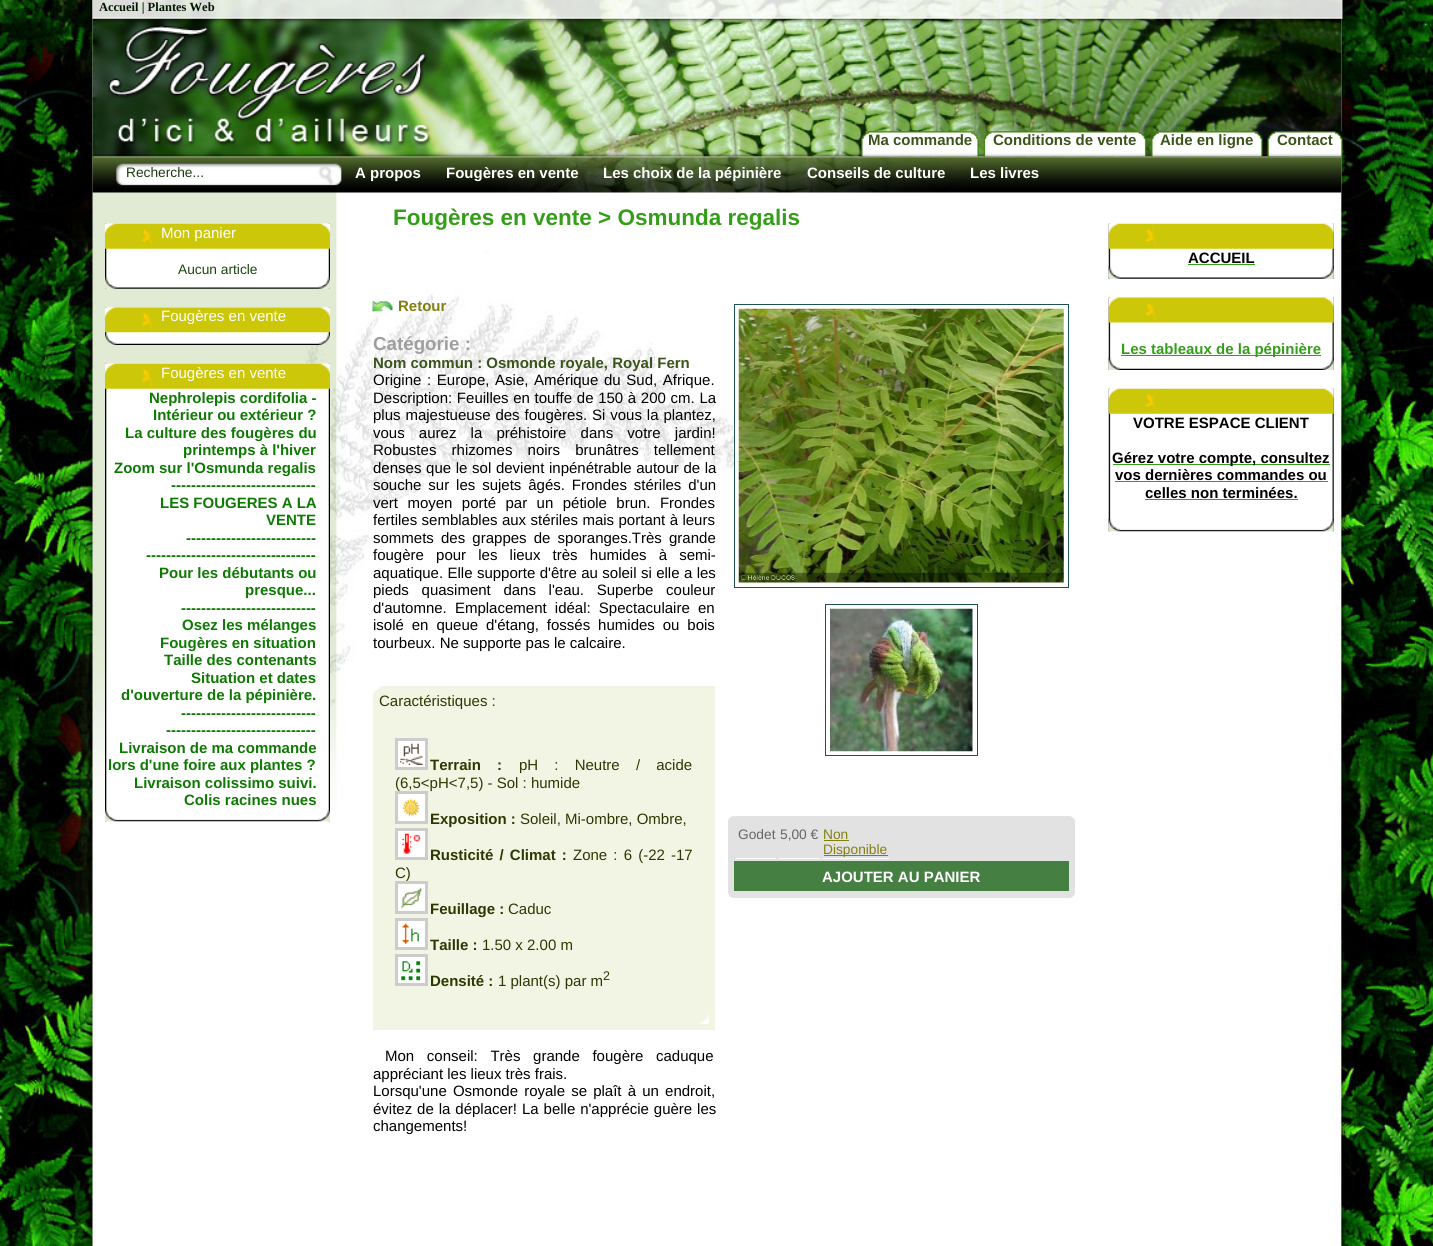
import math
import cairo

surface = cairo.ImageSurface(cairo.FORMAT_RGB24, 1433, 1246)
ctx = cairo.Context(surface)
options = cairo.FontOptions()
options.set_hint_metrics(cairo.HINT_METRICS_OFF)
options.set_hint_style(cairo.HINT_STYLE_NONE)
ctx.set_font_options(options)
ctx.set_miter_limit(4)


def set_color(code):
    ctx.set_source_rgb(*(v / 255 for v in bytes.fromhex(code[-6:])))


def draw_text(x, y, s, family, size, color, bold=False, italic=False):
    ctx.select_font_face(family, cairo.FONT_SLANT_ITALIC if italic else cairo.FONT_SLANT_NORMAL, cairo.FONT_WEIGHT_BOLD if bold else cairo.FONT_WEIGHT_NORMAL)
    ctx.set_font_size(size)
    set_color(color)
    ctx.move_to(x, y)
    ctx.show_text(s)


def draw_spaced(x, y, s, letter, word):
    ctx.move_to(x, y)
    for ch in s:
        ctx.show_text(ch)
        ctx.rel_move_to(letter + word * (ch == ' '), 0)


def fill_rect(x, y, w, h, color):
    set_color(color)
    ctx.rectangle(x, y, w, h)
    ctx.fill()


def rounded_rect(x, y, w, h, r):
    ctx.new_sub_path()
    for i, (u, v) in enumerate([(x + w - r, y + h - r), (x + r, y + h - r), (x + r, y + r), (x + w - r, y + r)]):
        ctx.arc(u, v, r, i * math.pi / 2, (i + 1) * math.pi / 2)
    ctx.close_path()


def draw_image(path, x, y, w, h):
    ctx.save()
    ctx.set_source_surface(cairo.ImageSurface.create_from_png(path), x, y)
    ctx.rectangle(x, y, w, h)
    ctx.fill()
    ctx.restore()


set_color("#ffffff")
ctx.paint()
draw_image("assets/img1.png", 0, 0, 1433, 1246)
draw_image("assets/img2.png", 92, 0, 1250, 193)
draw_text(99, 11, "Accueil | Plantes Web", "Liberation Serif", 12.5, "#031600", bold=True)
draw_image("assets/img3.png", 861, 131, 118, 26)
draw_text(868, 145, "Ma commande", "Liberation Sans", 15, "#3b541b", bold=True)
draw_image("assets/img4.png", 983, 131, 164, 26)
draw_text(993, 145, "Conditions de vente", "Liberation Sans", 15, "#3b541b", bold=True)
draw_image("assets/img5.png", 1151, 131, 112, 26)
draw_text(1160, 145, "Aide en ligne", "Liberation Sans", 15, "#3b541b", bold=True)
draw_image("assets/img6.png", 1267, 131, 76, 26)
draw_text(1277, 145, "Contact", "Liberation Sans", 15, "#3b541b", bold=True)
draw_text(126, 177, "Recherche...", "Liberation Sans", 13.75, "#1b3b10")
draw_text(355, 178, "A propos", "Liberation Sans", 15, "#ffffff", bold=True)
draw_text(446, 178, "Fougères en vente", "Liberation Sans", 15, "#ffffff", bold=True)
draw_text(603, 178, "Les choix de la pépinière", "Liberation Sans", 15, "#ffffff", bold=True)
draw_text(807, 178, "Conseils de culture", "Liberation Sans", 15, "#ffffff", bold=True)
draw_text(970, 178, "Les livres", "Liberation Sans", 15, "#ffffff", bold=True)
draw_image("assets/img7.png", 105, 223, 225, 66)
draw_image("assets/img8.png", 105, 223, 225, 26)
draw_text(161, 238, "Mon panier", "Liberation Sans", 15, "#ffffff")
draw_text(178, 274, "Aucun article", "Liberation Sans", 13.75, "#1b450e")
draw_image("assets/img9.png", 105, 276, 225, 13)
draw_image("assets/img10.png", 105, 307, 225, 26)
draw_image("assets/img11.png", 105, 307, 225, 26)
draw_text(161, 321, "Fougères en vente", "Liberation Sans", 15, "#ffffff")
draw_image("assets/img12.png", 105, 332, 225, 13)
draw_image("assets/img13.png", 105, 363, 225, 459)
draw_image("assets/img14.png", 105, 363, 225, 26)
draw_text(161, 378, "Fougères en vente", "Liberation Sans", 15, "#ffffff")
draw_text(149, 403, "Nephrolepis cordifolia -", "Liberation Sans", 15, "#0e7903", bold=True)
draw_text(153, 420, "Intérieur ou extérieur ?", "Liberation Sans", 15, "#0e7903", bold=True)
draw_text(125, 438, "La culture des fougères du", "Liberation Sans", 15, "#0e7903", bold=True)
draw_text(183, 455, "printemps à l'hiver", "Liberation Sans", 15, "#0e7903", bold=True)
draw_text(114, 473, "Zoom sur l'Osmunda regalis", "Liberation Sans", 15, "#0e7903", bold=True)
draw_text(171, 490, "-----------------------------", "Liberation Sans", 15, "#0e7903", bold=True)
draw_text(160, 508, "LES FOUGERES A LA", "Liberation Sans", 15, "#0e7903", bold=True)
draw_text(266, 525, "VENTE", "Liberation Sans", 15, "#0e7903", bold=True)
draw_text(186, 543, "--------------------------", "Liberation Sans", 15, "#0e7903", bold=True)
draw_text(146, 560, "----------------------------------", "Liberation Sans", 15, "#0e7903", bold=True)
draw_text(159, 578, "Pour les débutants ou", "Liberation Sans", 15, "#0e7903", bold=True)
draw_text(245, 595, "presque...", "Liberation Sans", 15, "#0e7903", bold=True)
draw_text(181, 613, "---------------------------", "Liberation Sans", 15, "#0e7903", bold=True)
draw_text(182, 630, "Osez les mélanges", "Liberation Sans", 15, "#0e7903", bold=True)
draw_text(160, 648, "Fougères en situation", "Liberation Sans", 15, "#0e7903", bold=True)
draw_text(164, 665, "Taille des contenants", "Liberation Sans", 15, "#0e7903", bold=True)
draw_text(191, 683, "Situation et dates", "Liberation Sans", 15, "#0e7903", bold=True)
draw_text(121, 700, "d'ouverture de la pépinière.", "Liberation Sans", 15, "#0e7903", bold=True)
draw_text(181, 718, "---------------------------", "Liberation Sans", 15, "#0e7903", bold=True)
draw_text(166, 735, "------------------------------", "Liberation Sans", 15, "#0e7903", bold=True)
draw_text(119, 753, "Livraison de ma commande", "Liberation Sans", 15, "#0e7903", bold=True)
draw_text(108, 770, "lors d'une foire aux plantes ?", "Liberation Sans", 15, "#0e7903", bold=True)
draw_text(134, 788, "Livraison colissimo suivi.", "Liberation Sans", 15, "#0e7903", bold=True)
draw_text(184, 805, "Colis racines nues", "Liberation Sans", 15, "#0e7903", bold=True)
draw_image("assets/img15.png", 105, 809, 225, 13)
draw_text(393, 225, "Fougères en vente > Osmunda regalis", "Liberation Sans", 22.5, "#339e18", bold=True)
draw_image("assets/img16.png", 372, 301, 21, 11)
draw_text(398, 311, "Retour", "Liberation Sans", 15, "#827f0f", bold=True)
draw_text(373, 350, "Catégorie :", "Liberation Sans", 18.75, "#9e9e9e", bold=True)
draw_text(373, 368, "Nom commun : Osmonde royale, Royal Fern", "Liberation Sans", 15, "#3b541b", bold=True)
ctx.select_font_face("Liberation Sans")
set_color("#000000")
draw_spaced(373, 385, "Origine : Europe, Asie, Amérique du Sud, Afrique.", 0, 1.5)
draw_spaced(373, 403, "Description: Feuilles en touffe de 150 à 200 cm. La", 0, 0.5)
draw_spaced(373, 420, "plus majestueuse des fougères. Si vous la plantez,", 0, 0.75)
draw_spaced(373, 438, "vous aurez la préhistoire dans votre jardin!", 0, 10)
draw_spaced(373, 455, "Robustes rhizomes noirs brunâtres tellement", 0, 11)
draw_spaced(373, 473, "denses que le sol devient inpénétrable autour de la", 0, 0.5)
draw_spaced(373, 490, "souche sur les sujets âgés. Frondes stériles d'un", 0, 2.75)
draw_spaced(373, 508, "vert moyen porté par un pétiole brun. Frondes", 0, 5.25)
draw_spaced(373, 525, "fertiles semblables aux stériles mais portant à leurs", 0, 0.25)
draw_spaced(373, 543, "sommets des grappes de sporanges.Très grande", 0, 3)
draw_spaced(373, 560, "fougère pour les lieux très humides à semi-", 0, 8)
draw_spaced(373, 578, "aquatique. Elle supporte d'être au soleil si elle a les", 0, 0.25)
draw_spaced(373, 595, "pieds quasiment dans l'eau. Superbe couleur", 0, 8.5)
draw_spaced(373, 613, "d'automne. Emplacement idéal: Spectaculaire en", 0, 4)
draw_spaced(373, 630, "isolé en queue d'étang, fossés humides ou bois", 0, 3.75)
draw_text(373, 648, "tourbeux. Ne supporte pas le calcaire.", "Liberation Sans", 15, "#000000")
fill_rect(373, 686, 342, 344, "#f2f5e4")
draw_image("assets/img17.png", 372, 686, 11, 12)
draw_text(379, 706, "Caractéristiques :", "Liberation Sans", 15, "#2c3801")
set_color("#ffffff")
ctx.rectangle(396.5, 739.5, 30, 29)
ctx.fill_preserve()
set_color("#cccccc")
ctx.set_line_width(3)
ctx.stroke()
draw_image("assets/img18.png", 400, 743, 23, 22)
ctx.select_font_face("Liberation Sans", cairo.FONT_SLANT_NORMAL, cairo.FONT_WEIGHT_BOLD)
set_color("#2c3801")
draw_spaced(430, 770, "Terrain :", 0, 12)
ctx.select_font_face("Liberation Sans")
draw_spaced(519, 770, "pH : Neutre / acide", 0, 12)
draw_text(395, 788, "(6,5<pH<7,5) - Sol : humide", "Liberation Sans", 15, "#2c3801")
set_color("#ffffff")
ctx.rectangle(396.5, 792.5, 30, 30)
ctx.fill_preserve()
set_color("#cccccc")
ctx.stroke()
draw_image("assets/img19.png", 402, 798, 18, 19)
draw_text(430, 824, "Exposition :", "Liberation Sans", 15, "#2c3801", bold=True)
draw_text(520, 824, "Soleil, Mi-ombre, Ombre,", "Liberation Sans", 15, "#2c3801")
set_color("#ffffff")
ctx.rectangle(396.5, 829.5, 30, 29)
ctx.fill_preserve()
set_color("#cccccc")
ctx.stroke()
draw_image("assets/img20.png", 402, 833, 19, 21)
ctx.select_font_face("Liberation Sans", cairo.FONT_SLANT_NORMAL, cairo.FONT_WEIGHT_BOLD)
set_color("#2c3801")
draw_spaced(430, 860, "Rusticité / Climat :", 0, 2)
ctx.select_font_face("Liberation Sans")
draw_spaced(573, 860, "Zone : 6 (-22", 0, 2)
draw_text(671, 860, "-17", "Liberation Sans", 15, "#2c3801")
draw_text(395, 878, "C)", "Liberation Sans", 15, "#2c3801")
set_color("#ffffff")
ctx.rectangle(396.5, 882.5, 30, 30)
ctx.fill_preserve()
set_color("#cccccc")
ctx.stroke()
draw_image("assets/img21.png", 401, 887, 21, 22)
draw_text(430, 914, "Feuillage :", "Liberation Sans", 15, "#2c3801", bold=True)
draw_text(508, 914, "Caduc", "Liberation Sans", 15, "#2c3801")
set_color("#ffffff")
ctx.rectangle(396.5, 919.5, 30, 29)
ctx.fill_preserve()
set_color("#cccccc")
ctx.stroke()
draw_image("assets/img22.png", 402, 923, 17, 21)
draw_text(430, 950, "Taille :", "Liberation Sans", 15, "#2c3801", bold=True)
draw_text(482, 950, "1.50 x 2.00 m", "Liberation Sans", 15, "#2c3801")
set_color("#ffffff")
ctx.rectangle(396.5, 955.5, 30, 29)
ctx.fill_preserve()
set_color("#cccccc")
ctx.stroke()
draw_image("assets/img23.png", 401, 961, 20, 20)
draw_text(430, 986, "Densité :", "Liberation Sans", 15, "#2c3801", bold=True)
draw_text(498, 986, "1 plant(s) par m", "Liberation Sans", 15, "#2c3801")
draw_text(603, 980, "2", "Liberation Sans", 12.5, "#2c3801")
draw_image("assets/img24.png", 698, 1014, 11, 10)
ctx.set_font_size(15)
set_color("#000000")
draw_spaced(385, 1061, "Mon conseil: Très grande fougère caduque", 0, 8.5)
draw_text(373, 1079, "appréciant les lieux très frais.", "Liberation Sans", 15, "#000000")
draw_spaced(373, 1096, "Lorsqu'une Osmonde royale se plaît à un endroit,", 0, 2)
draw_spaced(373, 1114, "évitez de la déplacer! La belle n'apprécie guère les", 0, 0.75)
draw_text(373, 1131, "changements!", "Liberation Sans", 15, "#000000")
fill_rect(735, 430, 20, 40, "#ffffff")
ctx.rectangle(734.5, 304.5, 334, 283)
set_color("#1f5255")
ctx.set_line_width(1)
ctx.stroke()
draw_image("assets/img25.png", 738, 308, 326, 275)
ctx.rectangle(825.5, 604.5, 152, 151)
ctx.stroke()
draw_image("assets/img26.png", 830, 608, 143, 144)
set_color("#e2e2e2")
rounded_rect(728, 816, 347, 82, 6)
ctx.fill()
fill_rect(736, 858, 40, 1, "#ffffff")
draw_text(738, 839, "Godet", "Liberation Sans", 13.75, "#666666")
fill_rect(779, 858, 41, 1, "#ffffff")
draw_text(780, 839, "5,00 €", "Liberation Sans", 13.75, "#666666")
fill_rect(823, 858, 66, 1, "#ffffff")
draw_text(823, 839, "Non", "Liberation Sans", 13.75, "#827f0f")
fill_rect(824, 840, 25, 1, "#827f0f")
fill_rect(824, 855, 64, 1, "#827f0f")
draw_text(823, 854, "Disponible", "Liberation Sans", 13.75, "#827f0f")
fill_rect(734, 861, 335, 30, "#457f42")
draw_text(822, 882, "AJOUTER AU PANIER", "Liberation Sans", 15, "#ffffff", bold=True)
draw_image("assets/img27.png", 1108, 223, 226, 56)
draw_image("assets/img28.png", 1108, 223, 226, 26)
draw_text(1188, 263, "ACCUEIL", "Liberation Sans", 15, "#000000", bold=True)
fill_rect(1188, 264, 67, 1, "#339e18")
draw_image("assets/img29.png", 1108, 266, 226, 13)
draw_image("assets/img30.png", 1108, 297, 226, 73)
draw_image("assets/img31.png", 1108, 297, 226, 26)
fill_rect(1121, 355, 200, 1, "#339e18")
draw_text(1121, 354, "Les tableaux de la pépinière", "Liberation Sans", 15, "#339e18", bold=True)
draw_image("assets/img32.png", 1108, 357, 226, 13)
draw_image("assets/img33.png", 1108, 388, 226, 144)
draw_image("assets/img28.png", 1108, 388, 226, 26)
draw_text(1133, 428, "VOTRE ESPACE CLIENT", "Liberation Sans", 15, "#000000", bold=True)
fill_rect(1113, 464, 217, 1, "#339e18")
draw_text(1112, 463, "Gérez votre compte, consultez", "Liberation Sans", 15, "#000000", bold=True)
draw_text(1115, 480, "vos dernières commandes ou", "Liberation Sans", 15, "#000000", bold=True)
fill_rect(1115, 481, 213, 1, "#339e18")
draw_text(1145, 498, "celles non terminées.", "Liberation Sans", 15, "#000000", bold=True)
fill_rect(1145, 499, 153, 1, "#339e18")
draw_image("assets/img34.png", 1108, 518, 226, 14)
surface.write_to_png("output.png")
